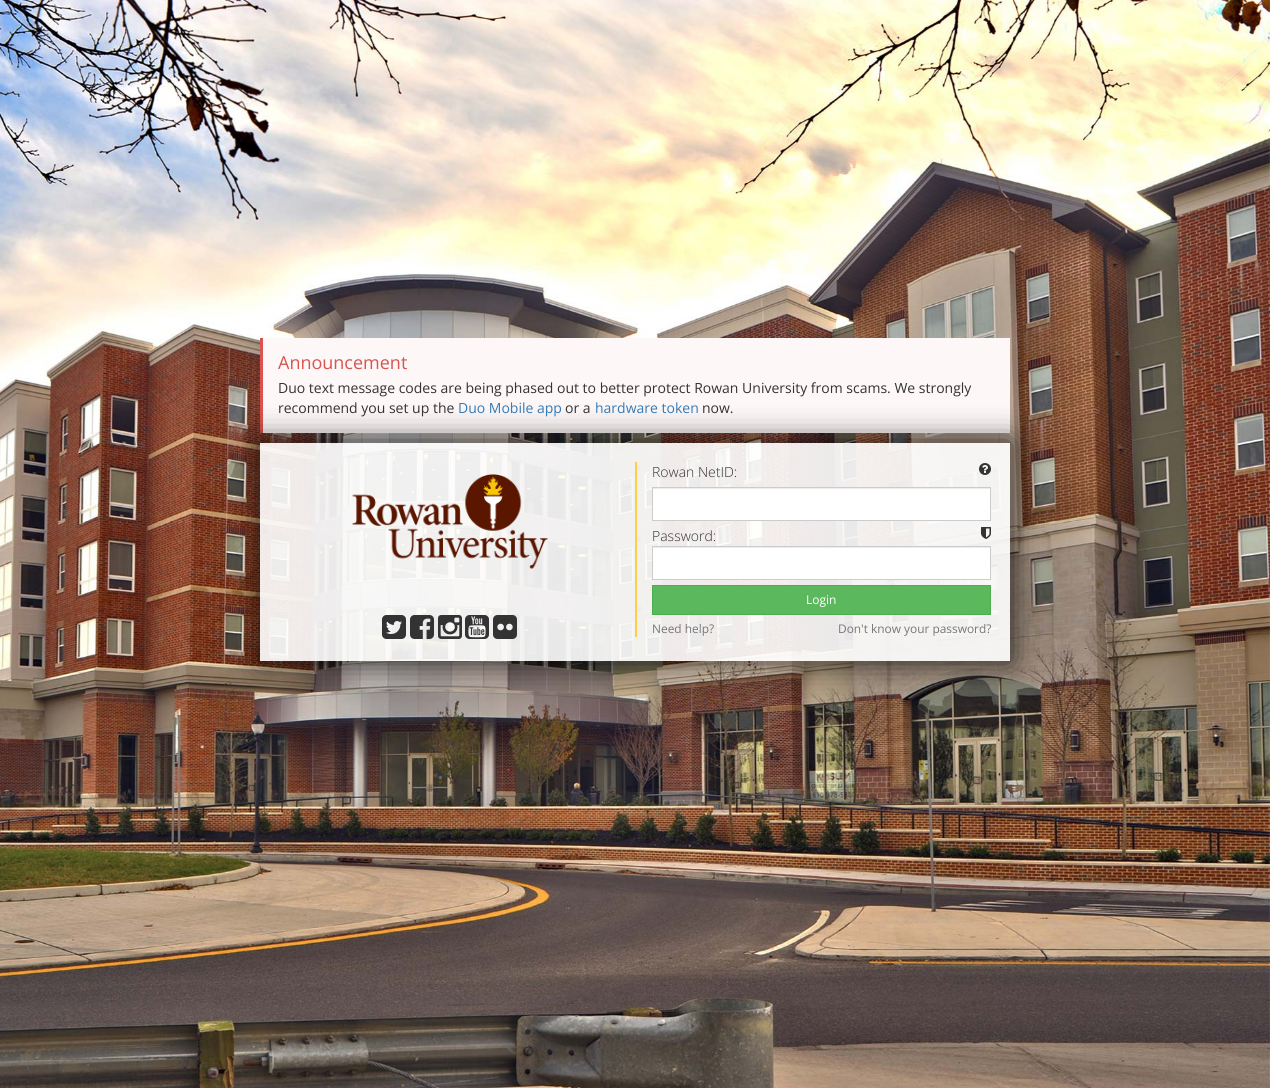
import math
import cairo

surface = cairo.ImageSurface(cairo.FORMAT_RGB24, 1270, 1088)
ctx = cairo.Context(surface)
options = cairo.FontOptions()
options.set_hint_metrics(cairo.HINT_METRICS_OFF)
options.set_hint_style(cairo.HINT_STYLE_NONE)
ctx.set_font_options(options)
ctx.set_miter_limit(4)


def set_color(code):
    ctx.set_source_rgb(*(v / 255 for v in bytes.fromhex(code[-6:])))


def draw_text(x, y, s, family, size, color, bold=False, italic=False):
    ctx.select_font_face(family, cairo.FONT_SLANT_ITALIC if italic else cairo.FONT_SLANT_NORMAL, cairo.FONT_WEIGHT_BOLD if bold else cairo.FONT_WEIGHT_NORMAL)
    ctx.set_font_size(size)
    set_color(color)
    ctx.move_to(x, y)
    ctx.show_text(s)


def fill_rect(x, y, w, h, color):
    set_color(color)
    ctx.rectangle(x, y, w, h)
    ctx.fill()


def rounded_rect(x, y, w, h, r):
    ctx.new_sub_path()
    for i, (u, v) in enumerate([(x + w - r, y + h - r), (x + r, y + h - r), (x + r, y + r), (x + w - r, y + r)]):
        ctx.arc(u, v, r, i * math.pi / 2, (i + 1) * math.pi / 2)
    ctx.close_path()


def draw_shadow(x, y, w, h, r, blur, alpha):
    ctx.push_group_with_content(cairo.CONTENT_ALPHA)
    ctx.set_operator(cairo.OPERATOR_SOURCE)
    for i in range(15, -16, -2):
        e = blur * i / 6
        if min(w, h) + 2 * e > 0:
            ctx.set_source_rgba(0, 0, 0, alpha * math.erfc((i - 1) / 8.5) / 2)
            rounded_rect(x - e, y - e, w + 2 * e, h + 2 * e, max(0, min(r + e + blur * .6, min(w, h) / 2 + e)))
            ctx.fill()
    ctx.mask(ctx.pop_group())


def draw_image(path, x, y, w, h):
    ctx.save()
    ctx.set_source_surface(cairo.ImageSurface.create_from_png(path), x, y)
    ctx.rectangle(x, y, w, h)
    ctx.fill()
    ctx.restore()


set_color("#ffffff")
ctx.paint()
draw_image("assets/img1.png", 0, 0, 1270, 1088)
fill_rect(263, 338, 747, 95, "#fdf7f7")
fill_rect(260, 338, 3, 95, "#d9534f")
draw_text(278, 369, "Announcement", "Open Sans", 18, "#d9534f")
ctx.save()
ctx.set_fill_rule(cairo.FILL_RULE_EVEN_ODD)
ctx.new_path()
ctx.move_to(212, 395)
ctx.line_to(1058, 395)
ctx.line_to(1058, 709)
ctx.line_to(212, 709)
ctx.close_path()
ctx.move_to(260, 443)
ctx.line_to(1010, 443)
ctx.line_to(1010, 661)
ctx.line_to(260, 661)
ctx.close_path()
ctx.clip()
set_color("#000000")
draw_shadow(258, 441, 754, 222, 0, 15, 0.75)
ctx.restore()
draw_text(278, 393, "Duo text message codes are being phased out to better protect Rowan University from scams. We strongly", "Open Sans", 14, "#333333")
draw_text(278, 413, "recommend you set up the", "Open Sans", 14, "#333333")
draw_text(458, 413, "Duo Mobile app", "Open Sans", 14, "#337ab7")
draw_text(565, 413, "or a", "Open Sans", 14, "#333333")
draw_text(595, 413, "hardware token", "Open Sans", 14, "#337ab7")
draw_text(702, 413, "now.", "Open Sans", 14, "#333333")
ctx.set_source_rgba(1, 1, 1, 0.9)
ctx.rectangle(260, 443, 750, 218)
ctx.fill()
draw_image("assets/img2.png", 352, 474, 196, 95)
draw_image("assets/img3.png", 382, 615, 24, 24)
draw_image("assets/img4.png", 410, 615, 24, 24)
draw_image("assets/img5.png", 438, 615, 24, 24)
draw_image("assets/img6.png", 465, 615, 24, 24)
draw_image("assets/img7.png", 493, 615, 24, 24)
fill_rect(635, 462, 2, 175, "#ffcf44")
draw_text(652, 477, "Rowan NetID:", "Open Sans Light", 14, "#333333")
draw_image("assets/img8.png", 979, 463, 12, 12)
fill_rect(653, 489, 337, 31, "#ffffff")
fill_rect(653, 488, 337, 1, "#ececec")
ctx.rectangle(652.5, 487.5, 338, 33)
set_color("#cccccc")
ctx.set_line_width(1)
ctx.stroke()
draw_text(652, 541, "Password:", "Open Sans Light", 14, "#333333")
draw_image("assets/img9.png", 981, 527, 10, 12)
fill_rect(653, 548, 337, 31, "#ffffff")
fill_rect(653, 547, 337, 1, "#ececec")
ctx.rectangle(652.5, 546.5, 338, 33)
set_color("#cccccc")
ctx.stroke()
set_color("#5cb85c")
ctx.rectangle(652.5, 585.5, 338, 29)
ctx.fill_preserve()
set_color("#4cae4c")
ctx.stroke()
draw_text(806, 604, "Login", "Open Sans", 12, "#ffffff")
draw_text(652, 633, "Need help?", "Open Sans", 11.9, "#777777")
draw_text(838, 633, "Don't know your password?", "Open Sans", 11.9, "#777777")
surface.write_to_png("output.png")
